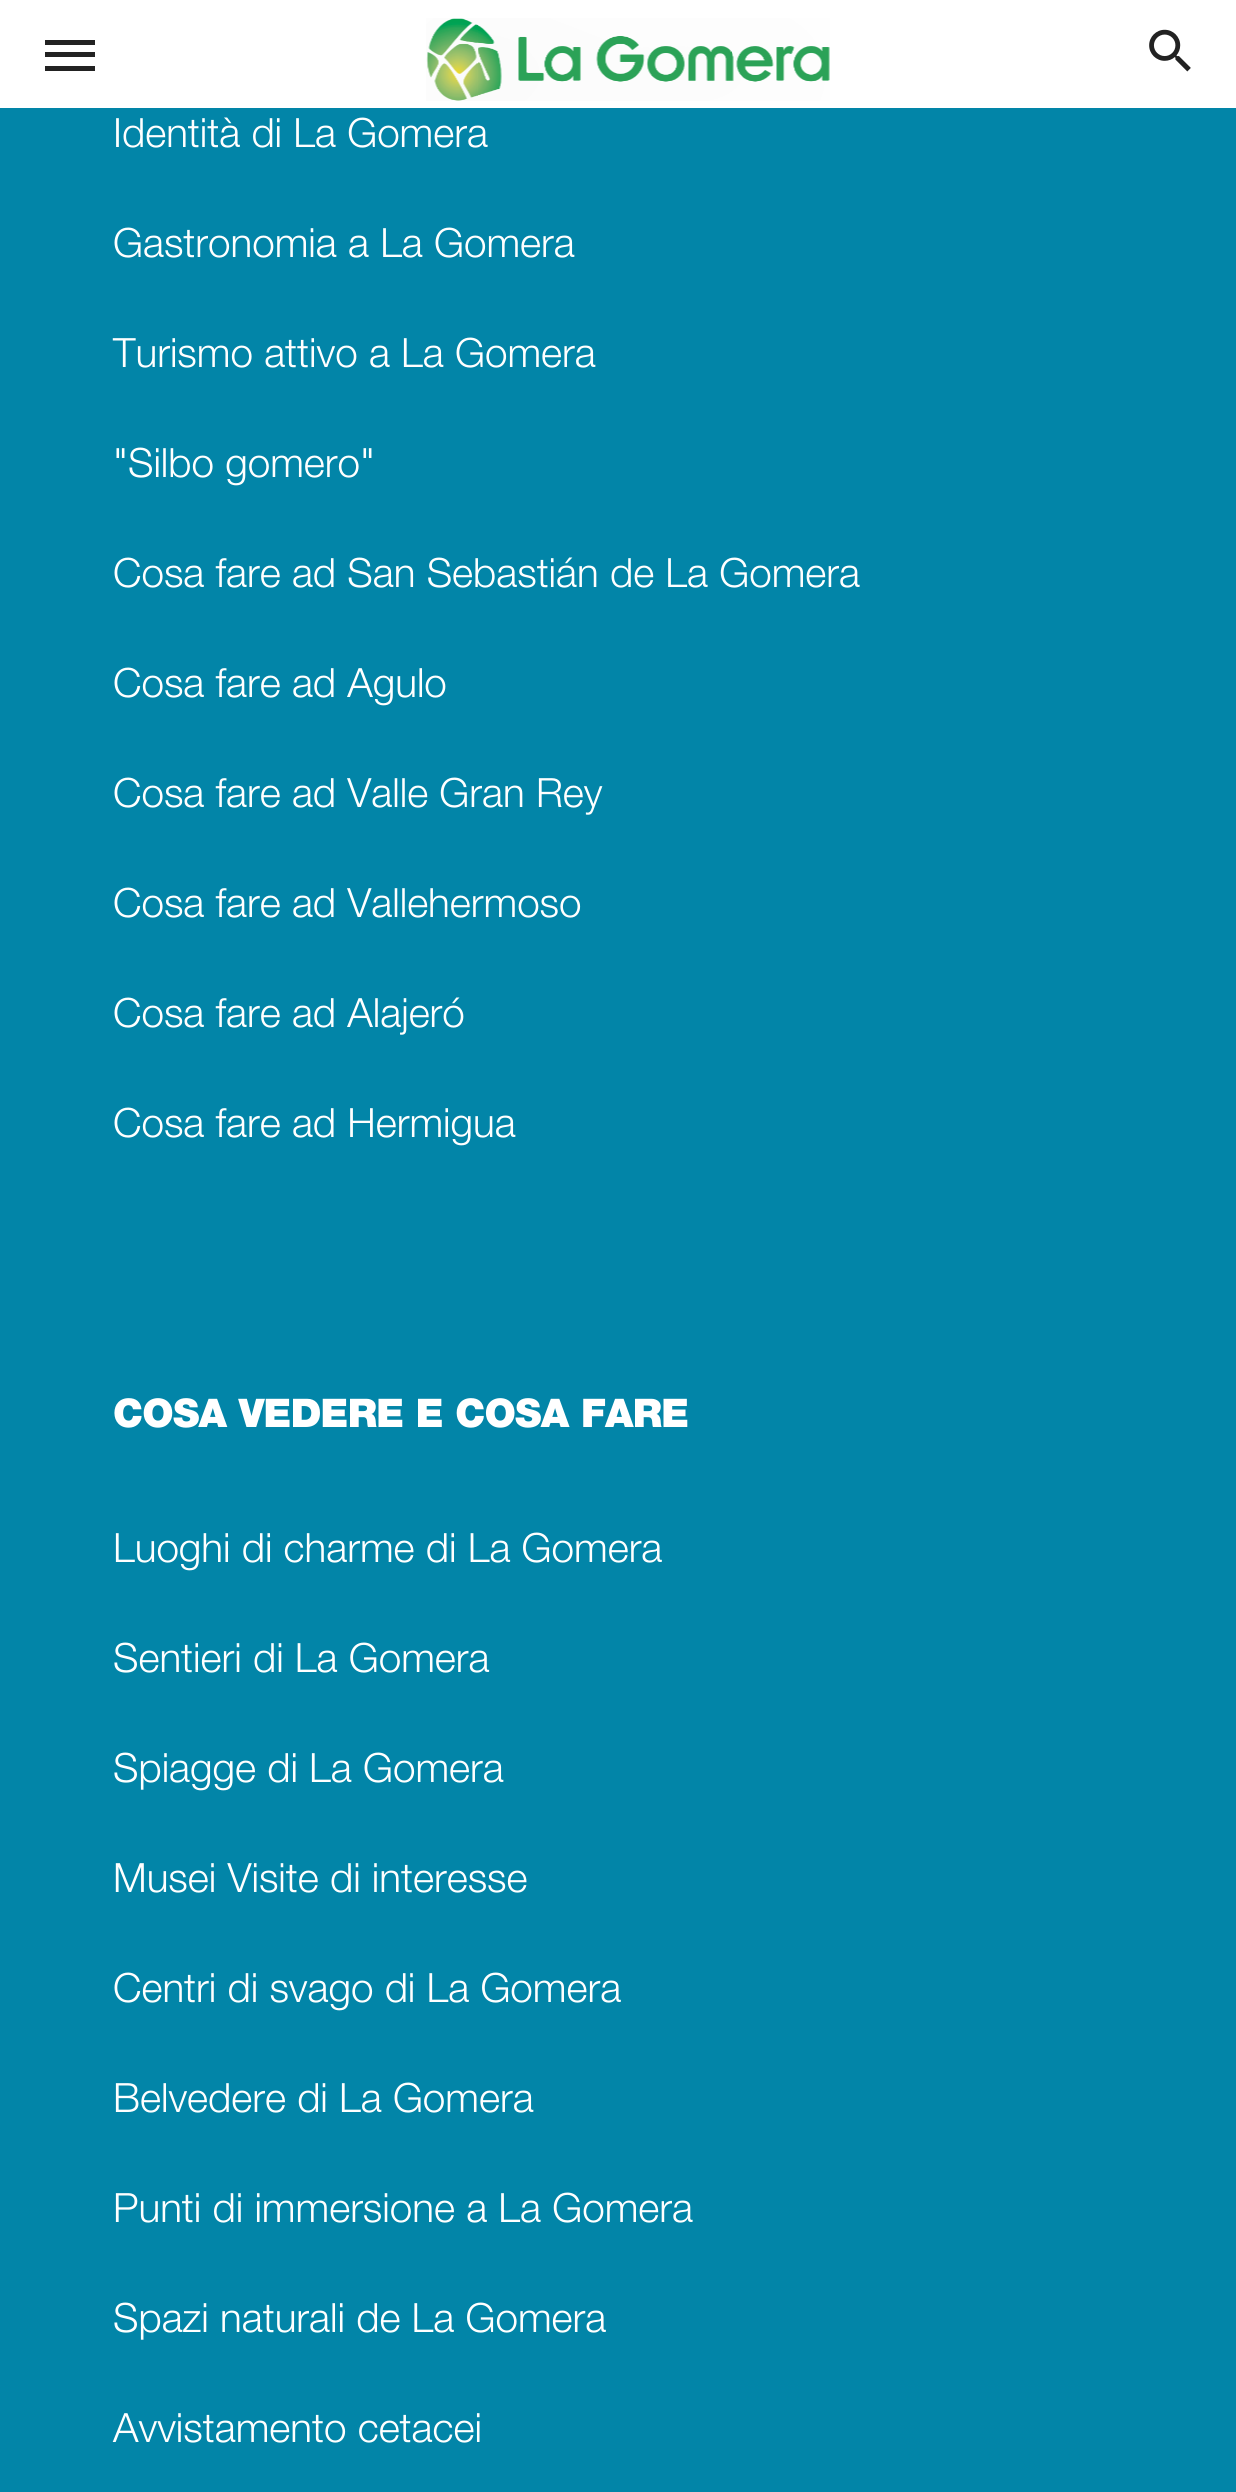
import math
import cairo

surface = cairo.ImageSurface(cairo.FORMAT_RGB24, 1236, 2492)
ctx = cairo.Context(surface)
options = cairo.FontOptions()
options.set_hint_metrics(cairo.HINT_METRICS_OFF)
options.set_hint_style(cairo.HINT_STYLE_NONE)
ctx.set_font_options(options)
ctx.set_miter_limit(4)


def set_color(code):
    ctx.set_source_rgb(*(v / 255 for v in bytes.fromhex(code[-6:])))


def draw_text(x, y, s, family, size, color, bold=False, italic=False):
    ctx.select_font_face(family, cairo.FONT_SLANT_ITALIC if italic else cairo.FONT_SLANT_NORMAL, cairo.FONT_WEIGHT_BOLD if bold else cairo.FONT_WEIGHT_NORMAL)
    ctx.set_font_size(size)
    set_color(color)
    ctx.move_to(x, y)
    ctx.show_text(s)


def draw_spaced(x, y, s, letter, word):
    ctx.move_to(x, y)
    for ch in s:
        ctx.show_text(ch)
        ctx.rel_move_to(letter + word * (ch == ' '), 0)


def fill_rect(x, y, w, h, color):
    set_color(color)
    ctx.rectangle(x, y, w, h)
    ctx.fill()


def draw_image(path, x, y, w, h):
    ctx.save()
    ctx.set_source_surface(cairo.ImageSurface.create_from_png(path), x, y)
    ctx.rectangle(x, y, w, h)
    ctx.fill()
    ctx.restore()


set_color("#0285a8")
ctx.paint()
fill_rect(0, 0, 1236, 108, "#ffffff")
set_color("#222222")
ctx.new_path()
ctx.move_to(45, 40)
ctx.line_to(95, 40)
ctx.line_to(95, 45)
ctx.line_to(45, 45)
ctx.close_path()
ctx.move_to(45, 66)
ctx.line_to(95, 66)
ctx.line_to(95, 71)
ctx.line_to(45, 71)
ctx.close_path()
ctx.move_to(45, 52)
ctx.line_to(95, 52)
ctx.line_to(95, 57)
ctx.line_to(45, 57)
ctx.close_path()
ctx.fill()
draw_image("assets/img1.png", 426, 18, 404, 83)
draw_image("assets/img2.png", 1149, 29, 42, 43)
draw_text(113, 147, "Identità di La Gomera", "Helvetica Neue Light", 40.4, "#ffffff")
draw_text(113, 257, "Gastronomia a La Gomera", "Helvetica Neue Light", 40.4, "#ffffff")
draw_text(113, 367, "Turismo attivo a La Gomera", "Helvetica Neue Light", 40.4, "#ffffff")
draw_text(113, 477, "\"Silbo gomero\"", "Helvetica Neue Light", 40.4, "#ffffff")
draw_text(113, 587, "Cosa fare ad San Sebastián de La Gomera", "Helvetica Neue Light", 40.4, "#ffffff")
draw_text(113, 697, "Cosa fare ad Agulo", "Helvetica Neue Light", 40.4, "#ffffff")
draw_text(113, 807, "Cosa fare ad Valle Gran Rey", "Helvetica Neue Light", 40.4, "#ffffff")
draw_text(113, 917, "Cosa fare ad Vallehermoso", "Helvetica Neue Light", 40.4, "#ffffff")
draw_text(113, 1027, "Cosa fare ad Alajeró", "Helvetica Neue Light", 40.4, "#ffffff")
draw_text(113, 1137, "Cosa fare ad Hermigua", "Helvetica Neue Light", 40.4, "#ffffff")
ctx.select_font_face("Helvetica Neue Black")
ctx.set_font_size(39.5)
draw_spaced(113, 1427, "COSA VEDERE E COSA FARE", -0.75, 0)
draw_text(113, 1562, "Luoghi di charme di La Gomera", "Helvetica Neue Light", 40.4, "#ffffff")
draw_text(113, 1672, "Sentieri di La Gomera", "Helvetica Neue Light", 40.4, "#ffffff")
draw_text(113, 1782, "Spiagge di La Gomera", "Helvetica Neue Light", 40.4, "#ffffff")
draw_text(113, 1892, "Musei Visite di interesse", "Helvetica Neue Light", 40.4, "#ffffff")
draw_text(113, 2002, "Centri di svago di La Gomera", "Helvetica Neue Light", 40.4, "#ffffff")
draw_text(113, 2112, "Belvedere di La Gomera", "Helvetica Neue Light", 40.4, "#ffffff")
draw_text(113, 2222, "Punti di immersione a La Gomera", "Helvetica Neue Light", 40.4, "#ffffff")
draw_text(113, 2332, "Spazi naturali de La Gomera", "Helvetica Neue Light", 40.4, "#ffffff")
draw_text(113, 2442, "Avvistamento cetacei", "Helvetica Neue Light", 40.4, "#ffffff")
surface.write_to_png("output.png")
